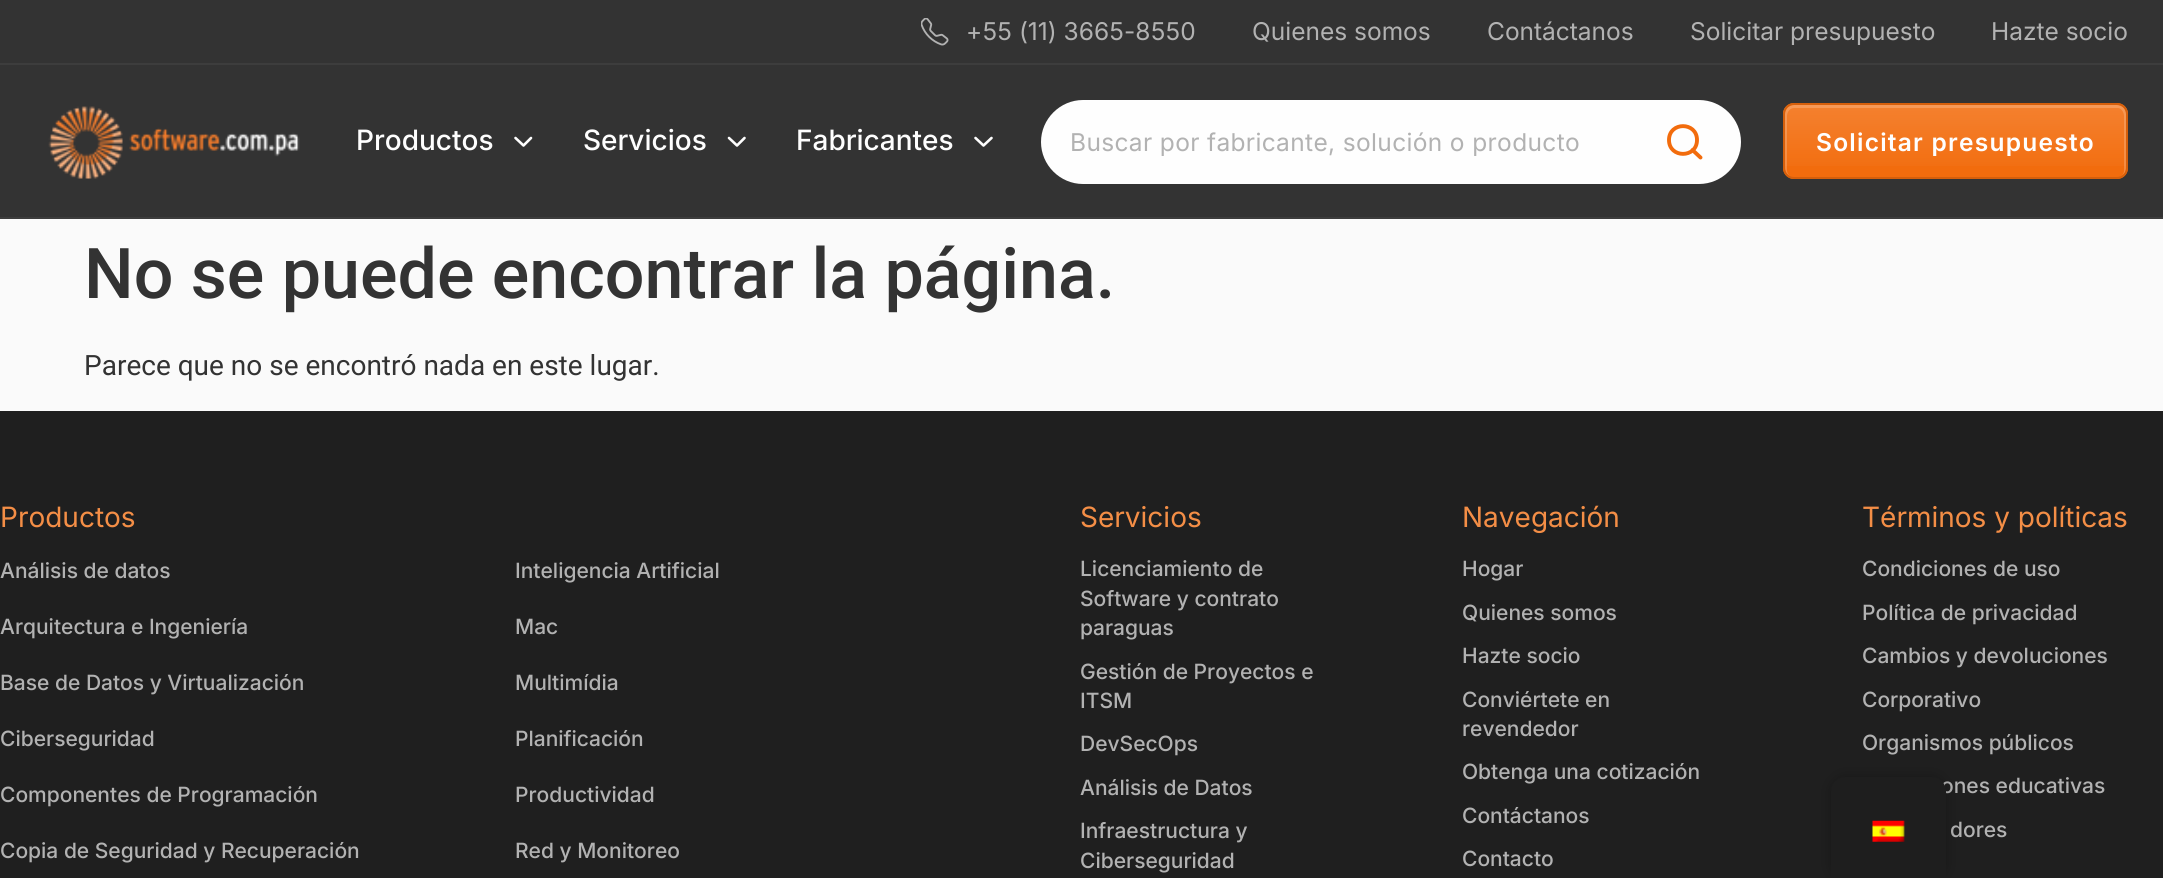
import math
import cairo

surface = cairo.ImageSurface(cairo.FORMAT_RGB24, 2163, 878)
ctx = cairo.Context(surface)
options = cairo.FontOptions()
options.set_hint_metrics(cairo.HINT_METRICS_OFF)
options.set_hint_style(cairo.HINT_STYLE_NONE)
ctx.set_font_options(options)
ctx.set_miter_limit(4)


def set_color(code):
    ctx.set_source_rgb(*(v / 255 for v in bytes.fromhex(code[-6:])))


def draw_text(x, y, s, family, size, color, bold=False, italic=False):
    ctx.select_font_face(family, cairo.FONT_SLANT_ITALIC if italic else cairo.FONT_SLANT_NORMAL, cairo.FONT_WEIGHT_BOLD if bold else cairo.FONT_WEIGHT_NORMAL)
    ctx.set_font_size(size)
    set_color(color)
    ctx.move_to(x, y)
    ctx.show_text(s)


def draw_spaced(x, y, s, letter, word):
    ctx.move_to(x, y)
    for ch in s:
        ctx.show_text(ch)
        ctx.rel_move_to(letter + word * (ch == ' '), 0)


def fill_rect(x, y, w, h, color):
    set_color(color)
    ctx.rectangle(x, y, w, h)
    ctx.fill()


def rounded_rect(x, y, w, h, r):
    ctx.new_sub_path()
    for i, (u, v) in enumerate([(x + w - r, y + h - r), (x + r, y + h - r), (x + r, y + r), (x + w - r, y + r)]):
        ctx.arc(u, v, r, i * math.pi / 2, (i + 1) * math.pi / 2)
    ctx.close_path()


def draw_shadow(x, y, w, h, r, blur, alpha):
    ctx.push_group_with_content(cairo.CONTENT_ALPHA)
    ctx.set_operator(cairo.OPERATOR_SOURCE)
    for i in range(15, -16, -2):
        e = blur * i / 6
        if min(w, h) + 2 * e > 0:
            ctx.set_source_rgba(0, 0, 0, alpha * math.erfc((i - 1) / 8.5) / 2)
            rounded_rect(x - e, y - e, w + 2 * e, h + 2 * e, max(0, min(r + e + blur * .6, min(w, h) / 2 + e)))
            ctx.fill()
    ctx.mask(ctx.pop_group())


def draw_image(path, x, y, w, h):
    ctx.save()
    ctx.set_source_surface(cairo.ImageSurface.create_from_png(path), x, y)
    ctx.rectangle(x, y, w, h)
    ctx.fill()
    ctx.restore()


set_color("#fafafa")
ctx.paint()
fill_rect(0, 0, 2163, 63, "#333333")
draw_image("assets/img1.png", 921, 18, 28, 28)
draw_text(966, 40, "+55 (11) 3665-8550", "Inter", 24.5, "#b2b2b2")
draw_text(1252, 40, "Quienes somos", "Inter", 24.5, "#b2b2b2")
draw_text(1487, 40, "Contáctanos", "Inter", 24.5, "#b2b2b2")
draw_text(1690, 40, "Solicitar presupuesto", "Inter", 24.5, "#b2b2b2")
draw_text(1991, 40, "Hazte socio", "Inter", 24.5, "#b2b2b2")
fill_rect(0, 65, 2163, 152, "#333333")
fill_rect(0, 63, 2163, 2, "#3d3d3d")
fill_rect(0, 217, 2163, 2, "#3d3d3d")
draw_image("assets/img2.png", 48, 106, 252, 73)
draw_text(356, 150, "Productos", "Inter Medium", 28, "#fefefe")
ctx.new_path()
ctx.move_to(515.5, 138)
ctx.line_to(523.5, 145.5)
ctx.line_to(531, 138)
ctx.set_line_width(2.6)
ctx.set_line_cap(cairo.LINE_CAP_ROUND)
ctx.set_line_join(cairo.LINE_JOIN_ROUND)
ctx.stroke()
draw_text(583, 150, "Servicios", "Inter Medium", 28, "#fefefe")
ctx.new_path()
ctx.move_to(729, 138)
ctx.line_to(737, 145.5)
ctx.line_to(744.5, 138)
ctx.stroke()
draw_text(796, 150, "Fabricantes", "Inter Medium", 28, "#fefefe")
ctx.new_path()
ctx.move_to(975.5, 138)
ctx.line_to(983.5, 145.5)
ctx.line_to(991.5, 138)
ctx.stroke()
ctx.new_path()
ctx.move_to(1083, 100)
ctx.line_to(1656, 100)
ctx.line_to(1656, 184)
ctx.line_to(1083, 184)
ctx.curve_to(1060, 184, 1041, 165, 1041, 142)
ctx.curve_to(1041, 119, 1060, 100, 1083, 100)
ctx.close_path()
ctx.fill()
ctx.select_font_face("Inter")
ctx.set_font_size(24.5)
set_color("#b2b2b2")
draw_spaced(1070, 151, "Buscar por fabricante, solución o producto", 0.35, 0)
set_color("#fefefe")
ctx.new_path()
ctx.move_to(1656, 100)
ctx.line_to(1699, 100)
ctx.curve_to(1722, 100, 1741, 119, 1741, 142)
ctx.curve_to(1741, 165, 1722, 184, 1699, 184)
ctx.line_to(1656, 184)
ctx.close_path()
ctx.fill()
ctx.new_path()
ctx.move_to(1692.5, 150)
ctx.line_to(1700.5, 157.5)
ctx.move_to(1697, 140)
ctx.curve_to(1697, 158.5, 1669, 158.5, 1669, 140)
ctx.curve_to(1669, 121.5, 1697, 121.5, 1697, 140)
ctx.close_path()
set_color("#f26c0d")
ctx.set_line_width(3.9)
ctx.stroke()
rounded_rect(1783, 103, 345, 76, 11)
ctx.fill()
ctx.save()
rounded_rect(1783, 103, 345, 76, 11)
ctx.clip()
gradient = cairo.LinearGradient(1956, 105, 1956, 177)
gradient.add_color_stop_rgba(0, 1, 1, 1, 0.14)
gradient.add_color_stop_rgba(1, 1, 1, 1, 0)
ctx.set_source(gradient)
ctx.rectangle(1783, 105, 345, 61)
ctx.fill()
ctx.restore()
ctx.set_source_rgba(1, 1, 1, 0.2)
ctx.new_path()
ctx.move_to(1794, 108)
ctx.line_to(2118, 108)
ctx.curve_to(2121, 108, 2124, 112, 2124, 116)
ctx.line_to(2124, 170)
ctx.curve_to(2124, 173, 2123, 175, 2121, 176)
ctx.curve_to(2124, 175, 2126, 172, 2126, 168)
ctx.line_to(2126, 114)
ctx.curve_to(2126, 109, 2122, 105, 2117, 105)
ctx.line_to(1794, 105)
ctx.curve_to(1789, 105, 1785, 109, 1785, 114)
ctx.line_to(1785, 168)
ctx.curve_to(1785, 173, 1789, 177, 1794, 177)
ctx.curve_to(1790, 177, 1787, 174, 1787, 170)
ctx.line_to(1787, 116)
ctx.curve_to(1787, 112, 1790, 108, 1794, 108)
ctx.close_path()
ctx.fill()
rounded_rect(1784, 104, 343, 74, 10)
set_color("#d55f0b")
ctx.set_line_width(2)
ctx.set_line_cap(cairo.LINE_CAP_BUTT)
ctx.set_line_join(cairo.LINE_JOIN_MITER)
ctx.stroke()
ctx.select_font_face("Inter SemiBold")
set_color("#fefefe")
draw_spaced(1816, 151, "Solicitar presupuesto", 1.25, 0)
draw_text(84, 298, "No se puede encontrar la página.", "Roboto Medium", 70, "#333333")
draw_text(84, 375, "Parece que no se encontró nada en este lugar.", "Roboto", 28, "#333333")
fill_rect(0, 411, 2163, 467, "#1f1f1f")
draw_text(0, 527, "Productos", "Inter", 28, "#f48e46")
draw_text(0, 578, "Análisis de datos", "Inter Medium", 21, "#b2b2b2")
draw_text(515, 578, "Inteligencia Artificial", "Inter Medium", 21, "#b2b2b2")
draw_text(0, 634, "Arquitectura e Ingeniería", "Inter Medium", 21, "#b2b2b2")
draw_text(515, 634, "Mac", "Inter Medium", 21, "#b2b2b2")
draw_text(0, 690, "Base de Datos y Virtualización", "Inter Medium", 21, "#b2b2b2")
draw_text(515, 690, "Multimídia", "Inter Medium", 21, "#b2b2b2")
draw_text(0, 746, "Ciberseguridad", "Inter Medium", 21, "#b2b2b2")
draw_text(515, 746, "Planificación", "Inter Medium", 21, "#b2b2b2")
draw_text(0, 802, "Componentes de Programación", "Inter Medium", 21, "#b2b2b2")
draw_text(515, 802, "Productividad", "Inter Medium", 21, "#b2b2b2")
draw_text(0, 858, "Copia de Seguridad y Recuperación", "Inter Medium", 21, "#b2b2b2")
draw_text(515, 858, "Red y Monitoreo", "Inter Medium", 21, "#b2b2b2")
draw_text(1080, 527, "Servicios", "Inter", 28, "#f48e46")
draw_text(1080, 576, "Licenciamiento de", "Inter Medium", 21, "#b2b2b2")
draw_text(1080, 606, "Software y contrato", "Inter Medium", 21, "#b2b2b2")
draw_text(1080, 635, "paraguas", "Inter Medium", 21, "#b2b2b2")
draw_text(1080, 679, "Gestión de Proyectos e", "Inter Medium", 21, "#b2b2b2")
draw_text(1080, 708, "ITSM", "Inter Medium", 21, "#b2b2b2")
draw_text(1080, 751, "DevSecOps", "Inter Medium", 21, "#b2b2b2")
draw_text(1080, 795, "Análisis de Datos", "Inter Medium", 21, "#b2b2b2")
draw_text(1080, 838, "Infraestructura y", "Inter Medium", 21, "#b2b2b2")
draw_text(1080, 868, "Ciberseguridad", "Inter Medium", 21, "#b2b2b2")
draw_text(1462, 527, "Navegación", "Inter", 28, "#f48e46")
draw_text(1462, 576, "Hogar", "Inter Medium", 21, "#b2b2b2")
draw_text(1462, 620, "Quienes somos", "Inter Medium", 21, "#b2b2b2")
draw_text(1462, 663, "Hazte socio", "Inter Medium", 21, "#b2b2b2")
draw_text(1462, 707, "Conviértete en", "Inter Medium", 21, "#b2b2b2")
draw_text(1462, 736, "revendedor", "Inter Medium", 21, "#b2b2b2")
draw_text(1462, 779, "Obtenga una cotización", "Inter Medium", 21, "#b2b2b2")
draw_text(1462, 823, "Contáctanos", "Inter Medium", 21, "#b2b2b2")
draw_text(1462, 866, "Contacto", "Inter Medium", 21, "#b2b2b2")
draw_text(1862, 527, "Términos y políticas", "Inter", 28, "#f48e46")
draw_text(1862, 576, "Condiciones de uso", "Inter Medium", 21, "#b2b2b2")
draw_text(1862, 620, "Política de privacidad", "Inter Medium", 21, "#b2b2b2")
draw_text(1862, 663, "Cambios y devoluciones", "Inter Medium", 21, "#b2b2b2")
draw_text(1862, 707, "Corporativo", "Inter Medium", 21, "#b2b2b2")
draw_text(1862, 750, "Organismos públicos", "Inter Medium", 21, "#b2b2b2")
draw_text(1941, 793, "ones educativas", "Inter Medium", 21, "#b2b2b2")
draw_text(1950, 837, "dores", "Inter Medium", 21, "#b2b2b2")
set_color("#000000")
draw_shadow(1831, 777, 115, 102, 14, 7, 0.25)
set_color("#1e1e1e")
ctx.new_path()
ctx.move_to(1845, 777)
ctx.line_to(1932, 777)
ctx.curve_to(1939.5, 777, 1946, 783.5, 1946, 791)
ctx.line_to(1946, 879)
ctx.line_to(1831, 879)
ctx.line_to(1831, 791)
ctx.curve_to(1831, 783.5, 1837.5, 777, 1845, 777)
ctx.close_path()
ctx.fill()
draw_image("assets/img3.png", 1872, 820, 33, 22)
surface.write_to_png("output.png")
